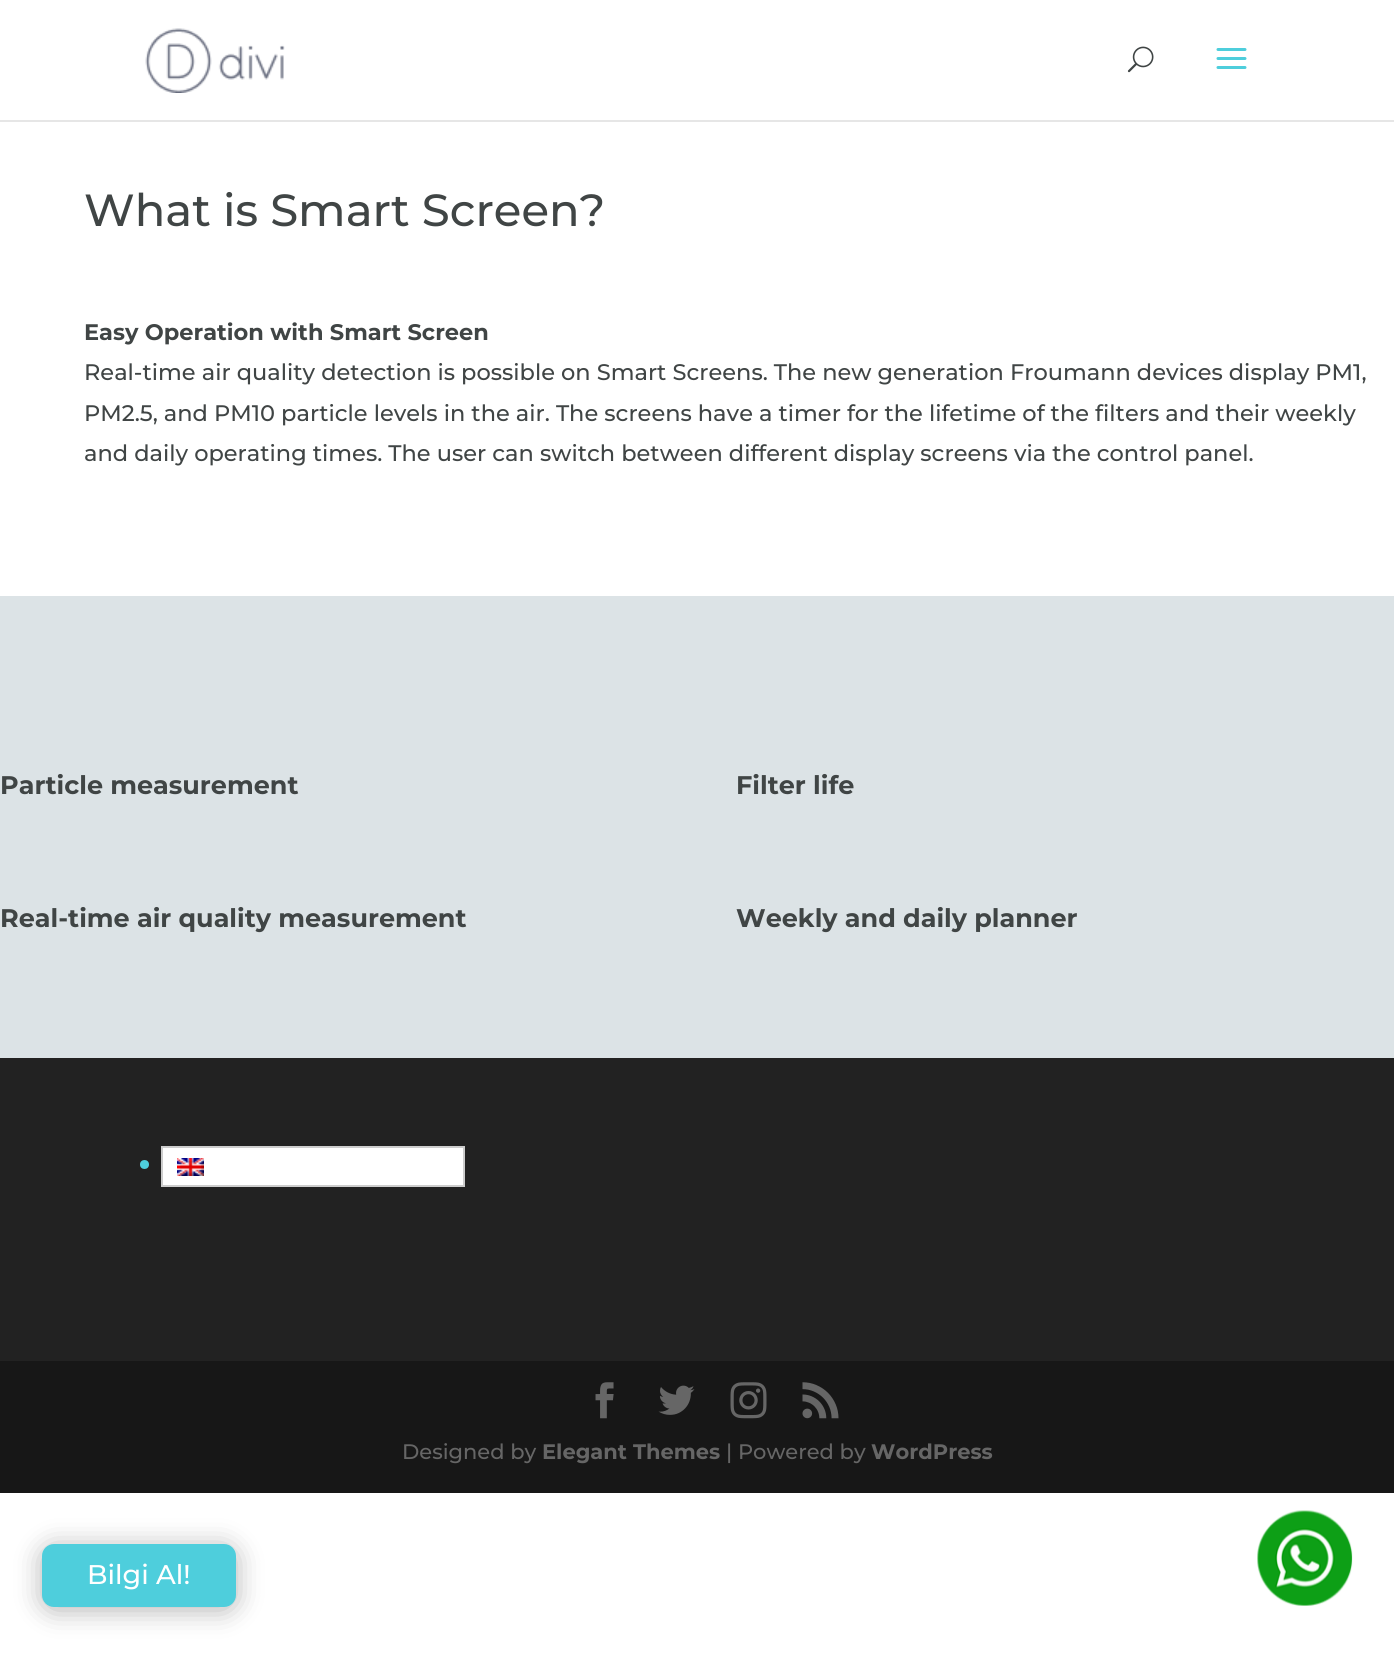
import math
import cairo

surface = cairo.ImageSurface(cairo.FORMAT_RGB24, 1394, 1656)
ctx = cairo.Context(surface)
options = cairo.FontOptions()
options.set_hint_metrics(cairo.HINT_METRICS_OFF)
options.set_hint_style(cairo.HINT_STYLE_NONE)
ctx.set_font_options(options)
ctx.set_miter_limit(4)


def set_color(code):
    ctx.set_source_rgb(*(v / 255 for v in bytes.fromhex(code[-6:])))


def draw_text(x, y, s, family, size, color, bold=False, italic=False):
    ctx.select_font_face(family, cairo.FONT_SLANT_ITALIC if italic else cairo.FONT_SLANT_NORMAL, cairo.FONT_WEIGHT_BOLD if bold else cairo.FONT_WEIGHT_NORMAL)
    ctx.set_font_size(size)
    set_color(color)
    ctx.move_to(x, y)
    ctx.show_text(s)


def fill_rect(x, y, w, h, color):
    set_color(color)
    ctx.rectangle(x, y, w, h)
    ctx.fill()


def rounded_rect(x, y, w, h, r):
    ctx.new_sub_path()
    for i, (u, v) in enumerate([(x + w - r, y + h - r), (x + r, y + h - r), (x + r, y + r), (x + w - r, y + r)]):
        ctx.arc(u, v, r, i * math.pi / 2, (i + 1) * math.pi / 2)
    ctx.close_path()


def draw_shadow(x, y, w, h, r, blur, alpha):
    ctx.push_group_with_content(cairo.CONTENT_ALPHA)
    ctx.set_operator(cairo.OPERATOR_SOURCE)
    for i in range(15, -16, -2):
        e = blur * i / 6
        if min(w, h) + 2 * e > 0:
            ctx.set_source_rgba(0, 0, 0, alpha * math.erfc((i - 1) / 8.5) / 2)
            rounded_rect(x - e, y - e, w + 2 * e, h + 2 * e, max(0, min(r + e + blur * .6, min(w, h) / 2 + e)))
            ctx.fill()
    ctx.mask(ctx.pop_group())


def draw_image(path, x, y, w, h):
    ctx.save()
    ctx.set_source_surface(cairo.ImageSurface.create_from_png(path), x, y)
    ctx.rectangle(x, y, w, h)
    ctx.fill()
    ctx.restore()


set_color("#ffffff")
ctx.paint()
fill_rect(0, 120, 1394, 2, "#e6e6e6")
draw_image("assets/img1.png", 145, 28, 140, 65)
draw_image("assets/img2.png", 1127, 46, 27, 27)
draw_image("assets/img3.png", 1216, 48, 31, 21)
draw_text(84, 226, "What is Smart Screen?", "Montserrat Thin", 45, "#404545")
draw_text(84, 340, "Easy Operation with Smart Screen", "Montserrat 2 Thin", 22.5, "#404545")
draw_text(84, 380, "Real-time air quality detection is possible on Smart Screens. The new generation Froumann devices display PM1,", "Montserrat Thin", 22.5, "#404545")
draw_text(84, 421, "PM2.5, and PM10 particle levels in the air. The screens have a timer for the lifetime of the filters and their weekly", "Montserrat Thin", 22.5, "#404545")
draw_text(84, 461, "and daily operating times. The user can switch between different display screens via the control panel.", "Montserrat Thin", 22.5, "#404545")
fill_rect(0, 596, 1394, 462, "#dce3e6")
draw_text(0, 794, "Particle measurement", "Montserrat 2 Thin", 25.5, "#404545")
draw_text(736, 794, "Filter life", "Montserrat 2 Thin", 25.5, "#404545")
draw_text(0, 927, "Real-time air quality measurement", "Montserrat 2 Thin", 25.5, "#404545")
draw_text(736, 927, "Weekly and daily planner", "Montserrat 2 Thin", 25.5, "#404545")
fill_rect(0, 1058, 1394, 303, "#222222")
set_color("#4ecedc")
ctx.new_path()
ctx.arc(144.5, 1164.5, 4.5, 0, 2 * math.pi)
ctx.fill()
set_color("#ffffff")
ctx.rectangle(162, 1147, 302, 39)
ctx.fill_preserve()
set_color("#cdcdcd")
ctx.stroke()
draw_image("assets/img4.png", 177, 1158, 27, 18)
fill_rect(0, 1361, 1394, 132, "#171717")
draw_image("assets/img5.png", 595, 1382, 19, 37)
draw_image("assets/img6.png", 658, 1385, 37, 30)
draw_image("assets/img7.png", 730, 1382, 37, 37)
draw_image("assets/img8.png", 802, 1382, 37, 37)
draw_text(402, 1459, "Designed by", "Montserrat Thin", 21, "#666666")
draw_text(542, 1459, "Elegant Themes", "Montserrat 2 Thin", 21, "#666666")
draw_text(726, 1459, "| Powered by", "Montserrat Thin", 21, "#666666")
draw_text(871, 1459, "WordPress", "Montserrat 2 Thin", 21, "#666666")
set_color("#000000")
draw_shadow(42, 1547, 194, 63, 12, 13.5, 0.3)
set_color("#4ecedc")
rounded_rect(42, 1544, 194, 63, 12)
ctx.fill()
draw_text(87, 1584, "Bilgi Al!", "Montserrat Thin", 27, "#ffffff")
draw_image("assets/img9.png", 1257, 1510, 96, 96)
surface.write_to_png("output.png")
